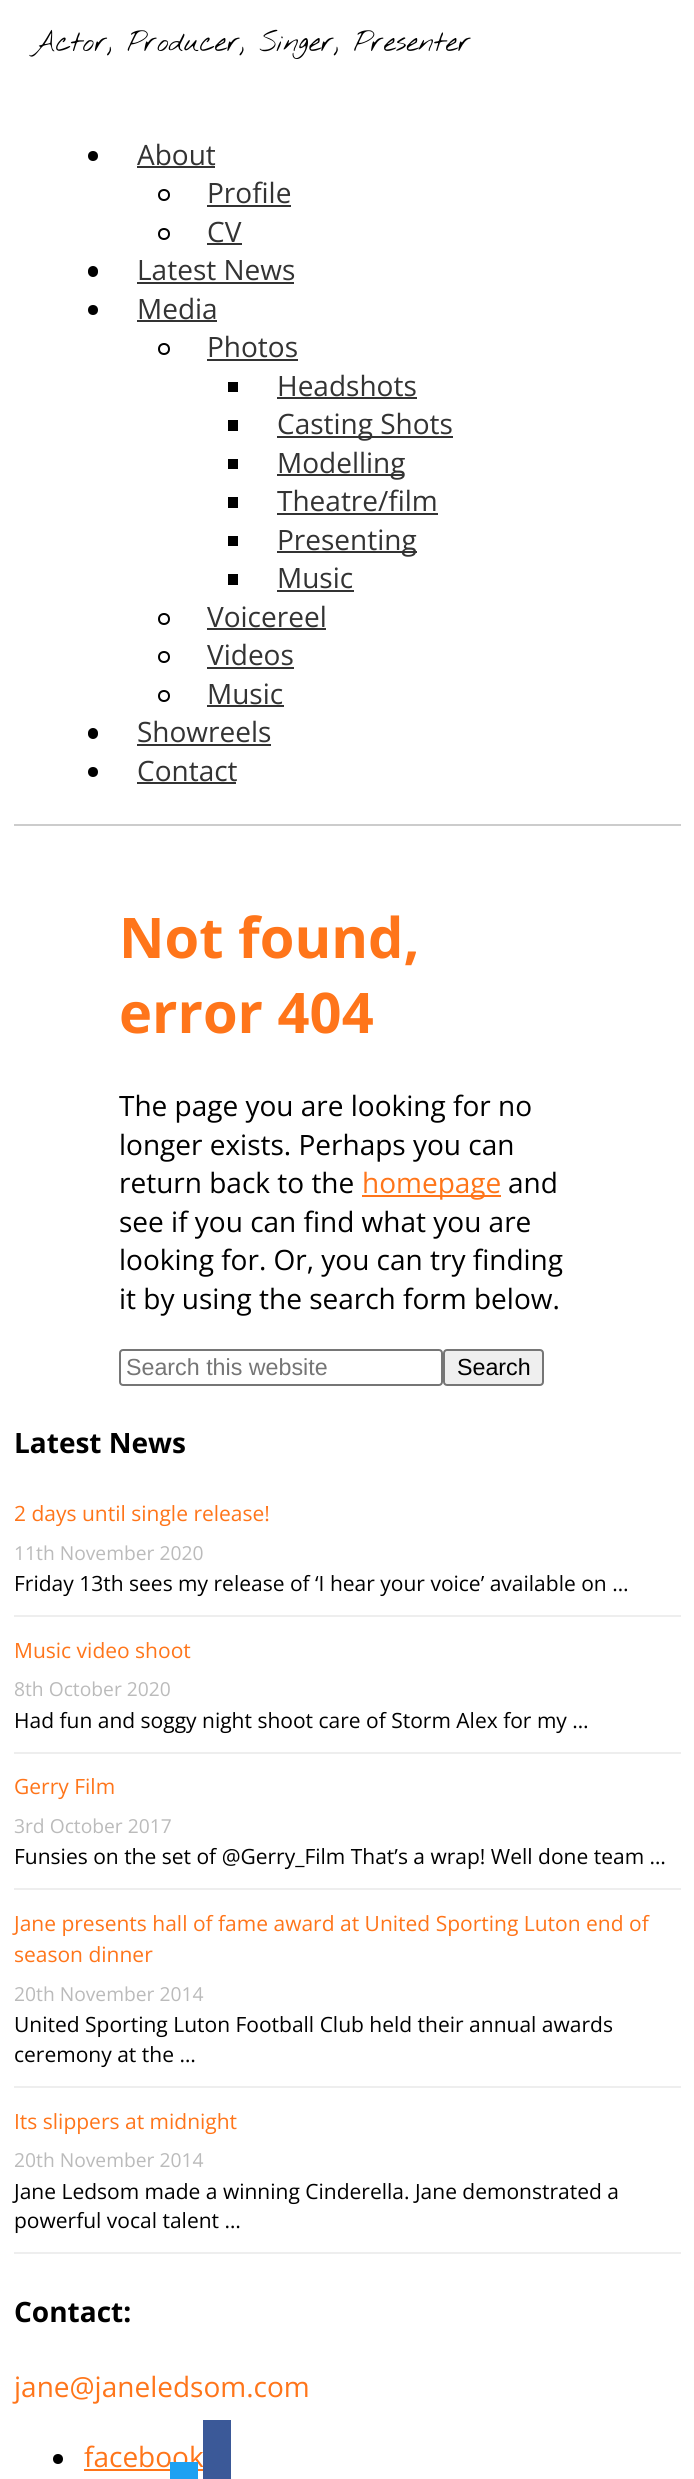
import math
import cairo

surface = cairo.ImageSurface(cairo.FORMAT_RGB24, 694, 2479)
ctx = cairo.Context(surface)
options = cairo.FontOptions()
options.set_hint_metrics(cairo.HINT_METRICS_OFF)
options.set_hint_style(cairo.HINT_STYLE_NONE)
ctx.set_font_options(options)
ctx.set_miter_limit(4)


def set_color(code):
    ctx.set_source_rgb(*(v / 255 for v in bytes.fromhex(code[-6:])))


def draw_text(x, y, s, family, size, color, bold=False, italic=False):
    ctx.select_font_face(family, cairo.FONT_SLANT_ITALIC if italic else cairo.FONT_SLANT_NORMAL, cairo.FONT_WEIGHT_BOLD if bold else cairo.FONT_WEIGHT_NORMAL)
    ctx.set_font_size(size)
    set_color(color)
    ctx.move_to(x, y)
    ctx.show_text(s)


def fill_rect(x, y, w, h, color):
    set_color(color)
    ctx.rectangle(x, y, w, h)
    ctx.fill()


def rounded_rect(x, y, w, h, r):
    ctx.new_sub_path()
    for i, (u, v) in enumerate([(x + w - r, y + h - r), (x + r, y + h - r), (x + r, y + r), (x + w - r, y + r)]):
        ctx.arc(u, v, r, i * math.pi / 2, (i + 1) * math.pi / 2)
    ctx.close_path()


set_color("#ffffff")
ctx.paint()
fill_rect(14, 824, 667, 2, "#cccccc")
draw_text(32, 51, "Actor, Producer, Singer, Presenter", "Nothing You Could Do Thin", 28, "#000000")
ctx.new_path()
ctx.arc(93, 156, 5, 0, 2 * math.pi)
ctx.fill()
draw_text(137, 165, "About", "Open Sans", 28, "#333333")
fill_rect(137, 166, 78, 2, "#333333")
ctx.new_path()
ctx.arc(164, 195, 5, 0, 2 * math.pi)
set_color("#000000")
ctx.stroke()
draw_text(207, 203, "Profile", "Open Sans", 28, "#333333")
fill_rect(207, 205, 84, 2, "#333333")
ctx.new_path()
ctx.arc(164, 234, 5, 0, 2 * math.pi)
set_color("#000000")
ctx.stroke()
draw_text(207, 242, "CV", "Open Sans", 28, "#333333")
fill_rect(207, 243, 35, 2, "#333333")
set_color("#000000")
rounded_rect(88, 266, 10, 11, 5)
ctx.fill()
draw_text(137, 280, "Latest News", "Open Sans", 28, "#333333")
fill_rect(137, 282, 157, 2, "#333333")
set_color("#000000")
ctx.new_path()
ctx.arc(93, 310, 5, 0, 2 * math.pi)
ctx.fill()
draw_text(137, 319, "Media", "Open Sans", 28, "#333333")
fill_rect(137, 320, 80, 2, "#333333")
ctx.new_path()
ctx.arc(164, 349, 5, 0, 2 * math.pi)
set_color("#000000")
ctx.stroke()
draw_text(207, 357, "Photos", "Open Sans", 28, "#333333")
fill_rect(207, 359, 91, 2, "#333333")
fill_rect(228, 382, 10, 10, "#000000")
draw_text(277, 396, "Headshots", "Open Sans", 28, "#333333")
fill_rect(277, 397, 140, 2, "#333333")
fill_rect(228, 420, 10, 11, "#000000")
fill_rect(277, 436, 176, 2, "#333333")
draw_text(277, 434, "Casting Shots", "Open Sans", 28, "#333333")
fill_rect(228, 459, 10, 10, "#000000")
fill_rect(277, 474, 127, 2, "#333333")
draw_text(277, 473, "Modelling", "Open Sans", 28, "#333333")
fill_rect(228, 497, 10, 11, "#000000")
draw_text(277, 511, "Theatre/film", "Open Sans", 28, "#333333")
fill_rect(277, 513, 161, 2, "#333333")
fill_rect(228, 536, 10, 10, "#000000")
fill_rect(277, 551, 140, 2, "#333333")
draw_text(277, 550, "Presenting", "Open Sans", 28, "#333333")
fill_rect(228, 574, 10, 11, "#000000")
draw_text(277, 588, "Music", "Open Sans", 28, "#333333")
fill_rect(277, 590, 77, 2, "#333333")
ctx.new_path()
ctx.arc(164, 619, 5, 0, 2 * math.pi)
set_color("#000000")
ctx.stroke()
draw_text(207, 627, "Voicereel", "Open Sans", 28, "#333333")
fill_rect(207, 628, 119, 2, "#333333")
ctx.new_path()
ctx.arc(164, 657, 5, 0, 2 * math.pi)
set_color("#000000")
ctx.stroke()
draw_text(207, 665, "Videos", "Open Sans", 28, "#333333")
fill_rect(207, 667, 87, 2, "#333333")
ctx.new_path()
ctx.arc(164, 696, 5, 0, 2 * math.pi)
set_color("#000000")
ctx.stroke()
draw_text(207, 704, "Music", "Open Sans", 28, "#333333")
fill_rect(207, 705, 77, 2, "#333333")
set_color("#000000")
rounded_rect(88, 728, 10, 11, 5)
ctx.fill()
draw_text(137, 742, "Showreels", "Open Sans", 28, "#333333")
fill_rect(137, 744, 134, 2, "#333333")
set_color("#000000")
ctx.new_path()
ctx.arc(93, 772, 5, 0, 2 * math.pi)
ctx.fill()
draw_text(137, 781, "Contact", "Open Sans", 28, "#333333")
fill_rect(137, 782, 99, 2, "#333333")
draw_text(119, 958, "Not found,", "Open Sans", 56, "#ff751a", bold=True)
draw_text(119, 1033, "error 404", "Open Sans", 56, "#ff751a", bold=True)
draw_text(119, 1116, "The page you are looking for no", "Open Sans", 28, "#000000")
draw_text(119, 1155, "longer exists. Perhaps you can", "Open Sans", 28, "#000000")
draw_text(119, 1193, "return back to the", "Open Sans", 28, "#000000")
fill_rect(362, 1195, 139, 2, "#ff751a")
draw_text(362, 1193, "homepage", "Open Sans", 28, "#ff751a")
draw_text(508, 1193, "and", "Open Sans", 28, "#000000")
draw_text(119, 1232, "see if you can find what you are", "Open Sans", 28, "#000000")
draw_text(119, 1270, "looking for. Or, you can try finding", "Open Sans", 28, "#000000")
draw_text(119, 1309, "it by using the search form below.", "Open Sans", 28, "#000000")
rounded_rect(120, 1350, 322, 35, 3)
set_color("#767676")
ctx.stroke()
draw_text(126, 1375, "Search this website", "Liberation Sans", 23.25, "#757575")
set_color("#efefef")
rounded_rect(444, 1350, 99, 35, 3)
ctx.fill_preserve()
set_color("#767676")
ctx.stroke()
draw_text(457, 1375, "Search", "Liberation Sans", 23.25, "#000000")
draw_text(14, 1453, "Latest News", "Open Sans", 28, "#000000", bold=True)
fill_rect(14, 1615, 667, 2, "#eeeeee")
draw_text(14, 1521, "2 days until single release!", "Open Sans", 21, "#ff751a")
draw_text(14, 1560, "11th November 2020", "Open Sans", 19.25, "#bbbbbb")
draw_text(14, 1591, "Friday 13th sees my release of ‘I hear your voice’ available on …", "Open Sans", 21, "#000000")
fill_rect(14, 1752, 667, 2, "#eeeeee")
draw_text(14, 1658, "Music video shoot", "Open Sans", 21, "#ff751a")
draw_text(14, 1696, "8th October 2020", "Open Sans", 19.25, "#bbbbbb")
draw_text(14, 1728, "Had fun and soggy night shoot care of Storm Alex for my …", "Open Sans", 21, "#000000")
fill_rect(14, 1888, 667, 2, "#eeeeee")
draw_text(14, 1794, "Gerry Film", "Open Sans", 21, "#ff751a")
draw_text(14, 1833, "3rd October 2017", "Open Sans", 19.25, "#bbbbbb")
draw_text(14, 1864, "Funsies on the set of @Gerry_Film That’s a wrap! Well done team …", "Open Sans", 21, "#000000")
fill_rect(14, 2086, 667, 2, "#eeeeee")
draw_text(14, 1931, "Jane presents hall of fame award at United Sporting Luton end of", "Open Sans", 21, "#ff751a")
draw_text(14, 1962, "season dinner", "Open Sans", 21, "#ff751a")
draw_text(14, 2001, "20th November 2014", "Open Sans", 19.25, "#bbbbbb")
draw_text(14, 2032, "United Sporting Luton Football Club held their annual awards", "Open Sans", 21, "#000000")
draw_text(14, 2062, "ceremony at the …", "Open Sans", 21, "#000000")
fill_rect(14, 2252, 667, 2, "#eeeeee")
draw_text(14, 2129, "Its slippers at midnight", "Open Sans", 21, "#ff751a")
draw_text(14, 2167, "20th November 2014", "Open Sans", 19.25, "#bbbbbb")
draw_text(14, 2199, "Jane Ledsom made a winning Cinderella. Jane demonstrated a", "Open Sans", 21, "#000000")
draw_text(14, 2228, "powerful vocal talent …", "Open Sans", 21, "#000000")
draw_text(14, 2322, "Contact:", "Open Sans", 28, "#000000", bold=True)
draw_text(14, 2397, "jane@janeledsom.com", "Open Sans", 28, "#ff751a")
set_color("#000000")
ctx.new_path()
ctx.arc(58, 2459, 5, 0, 2 * math.pi)
ctx.fill()
draw_text(84, 2467, "facebook", "Open Sans", 28, "#ff751a")
fill_rect(84, 2469, 119, 2, "#ff751a")
fill_rect(203, 2420, 28, 59, "#3b5998")
fill_rect(170, 2462, 28, 17, "#1da1f2")
surface.write_to_png("output.png")
